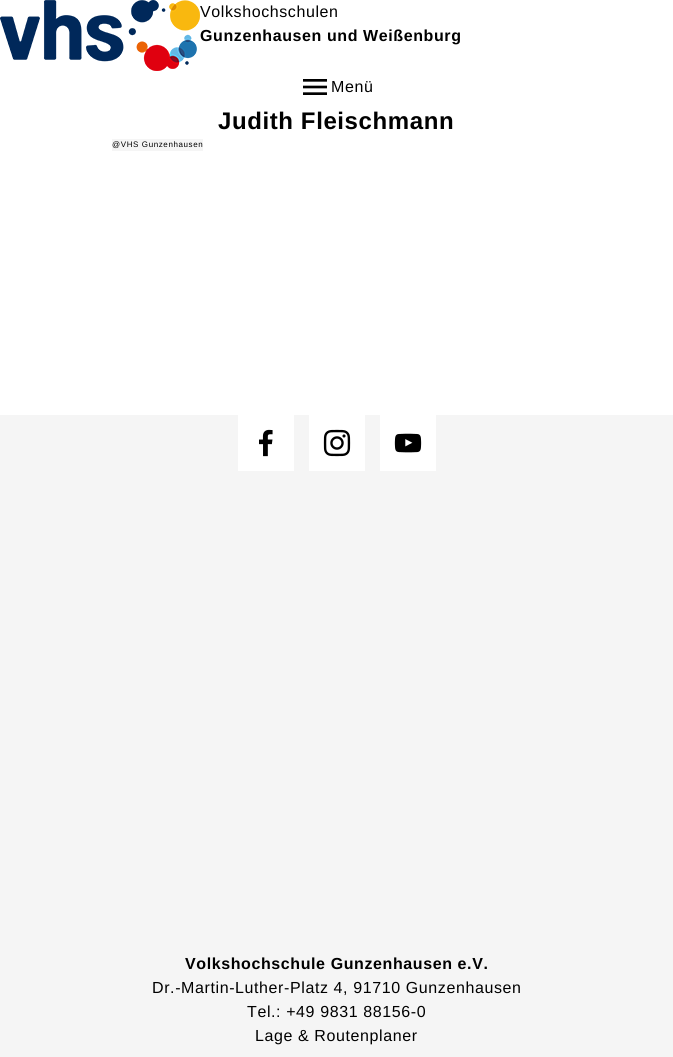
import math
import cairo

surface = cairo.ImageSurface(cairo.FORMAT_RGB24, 673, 1057)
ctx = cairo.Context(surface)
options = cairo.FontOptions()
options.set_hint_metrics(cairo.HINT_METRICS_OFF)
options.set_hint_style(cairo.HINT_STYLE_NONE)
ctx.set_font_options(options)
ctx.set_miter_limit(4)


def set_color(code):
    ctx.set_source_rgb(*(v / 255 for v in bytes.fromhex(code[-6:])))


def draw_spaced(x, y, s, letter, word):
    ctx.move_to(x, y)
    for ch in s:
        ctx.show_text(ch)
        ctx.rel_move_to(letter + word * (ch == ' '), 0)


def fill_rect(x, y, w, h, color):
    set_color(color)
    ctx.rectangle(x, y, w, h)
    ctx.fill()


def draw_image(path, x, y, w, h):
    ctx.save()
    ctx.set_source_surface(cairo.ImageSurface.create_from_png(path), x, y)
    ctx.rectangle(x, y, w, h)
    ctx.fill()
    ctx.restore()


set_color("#ffffff")
ctx.paint()
draw_image("assets/img1.png", 0, 0, 200, 71)
ctx.select_font_face("Liberation Sans")
ctx.set_font_size(16)
set_color("#000000")
draw_spaced(200, 17, "Volkshochschulen", 0.6, 0)
ctx.select_font_face("Liberation Sans", cairo.FONT_SLANT_NORMAL, cairo.FONT_WEIGHT_BOLD)
draw_spaced(200, 41, "Gunzenhausen und Weißenburg", 0.6, 0)
draw_image("assets/img2.png", 303, 79, 24, 16)
ctx.select_font_face("Liberation Sans")
draw_spaced(331, 92, "Menü", 0.6, 0)
ctx.select_font_face("Liberation Sans", cairo.FONT_SLANT_NORMAL, cairo.FONT_WEIGHT_BOLD)
ctx.set_font_size(24)
draw_spaced(218, 129, "Judith Fleischmann", 0.6, 0)
fill_rect(112, 139, 91, 12, "#f5f5f5")
ctx.select_font_face("Liberation Sans")
ctx.set_font_size(8)
set_color("#000000")
draw_spaced(112, 147, "@VHS Gunzenhausen", 0.6, 0)
fill_rect(0, 415, 673, 642, "#f5f5f5")
fill_rect(238, 415, 56, 56, "#ffffff")
draw_image("assets/img3.png", 259, 429, 14, 28)
fill_rect(309, 415, 56, 56, "#ffffff")
draw_image("assets/img4.png", 323, 429, 28, 28)
fill_rect(380, 415, 56, 56, "#ffffff")
draw_image("assets/img5.png", 394, 433, 28, 20)
ctx.select_font_face("Liberation Sans", cairo.FONT_SLANT_NORMAL, cairo.FONT_WEIGHT_BOLD)
ctx.set_font_size(16)
set_color("#000000")
draw_spaced(185, 969, "Volkshochschule Gunzenhausen e.V.", 0.6, 0)
ctx.select_font_face("Liberation Sans")
draw_spaced(152, 993, "Dr.-Martin-Luther-Platz 4, 91710 Gunzenhausen", 0.6, 0)
draw_spaced(247, 1017, "Tel.: +49 9831 88156-0", 0.6, 0)
draw_spaced(255, 1041, "Lage & Routenplaner", 0.6, 0)
surface.write_to_png("output.png")
